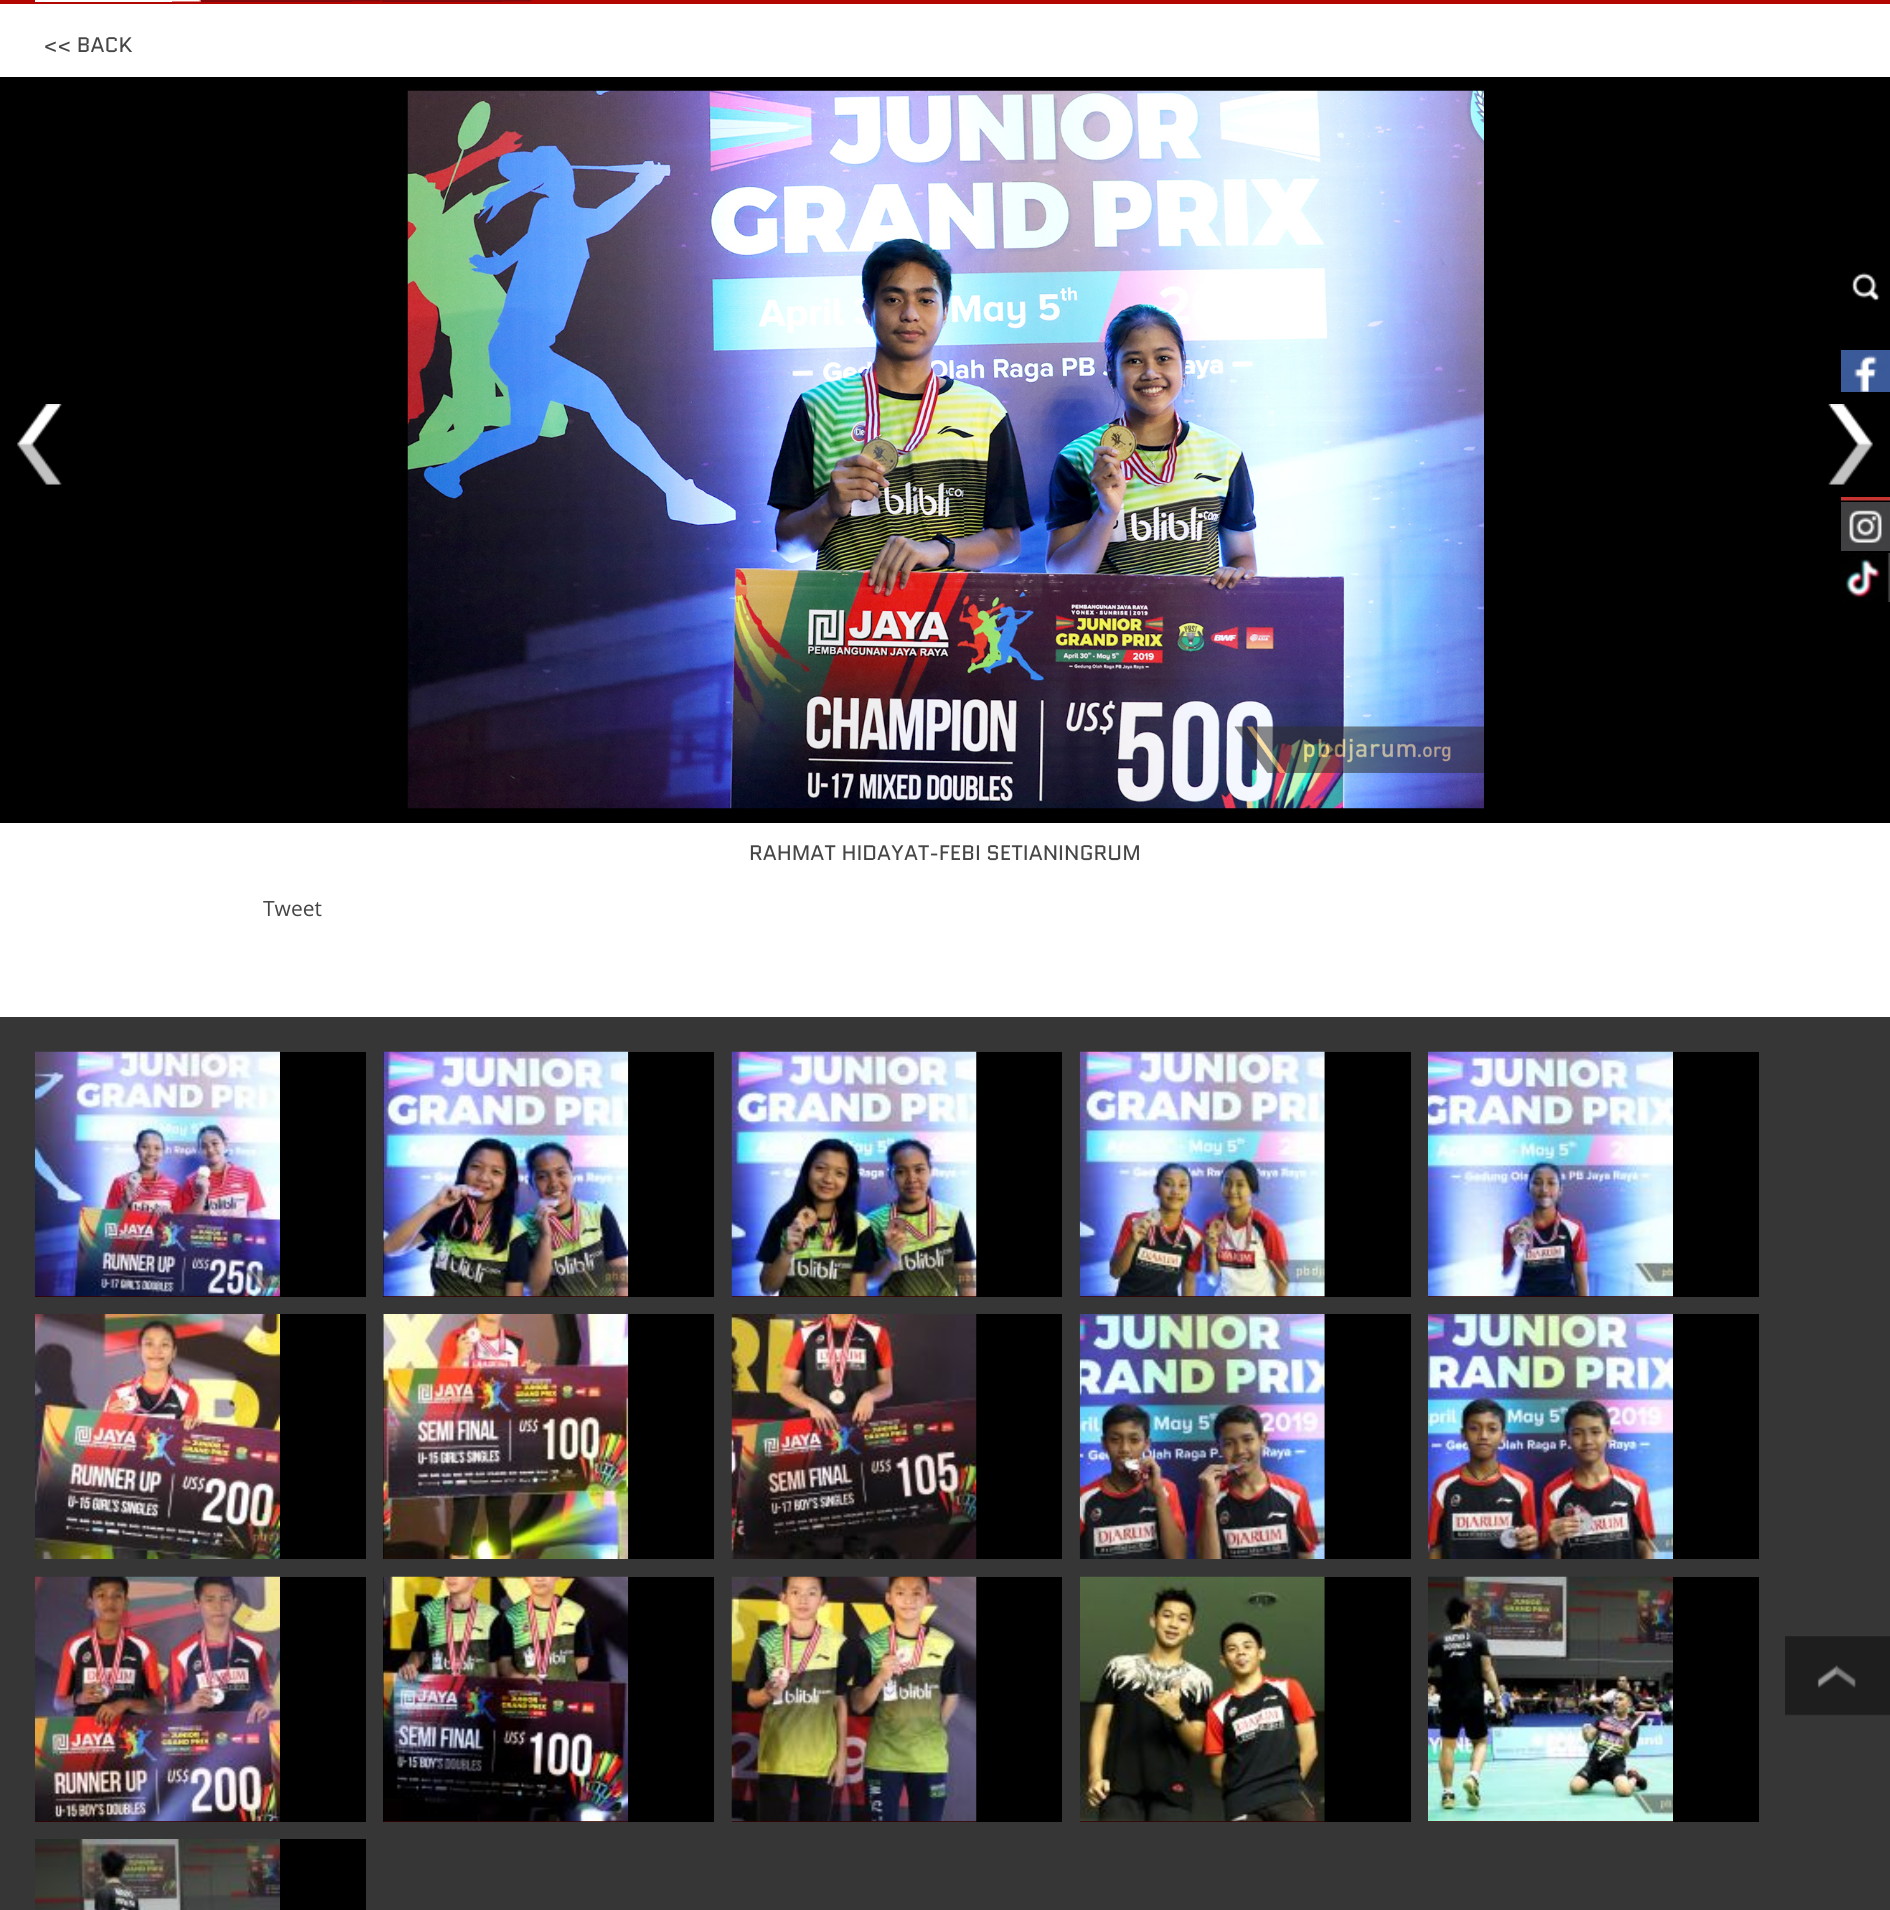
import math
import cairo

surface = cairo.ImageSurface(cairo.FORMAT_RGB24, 1890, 1910)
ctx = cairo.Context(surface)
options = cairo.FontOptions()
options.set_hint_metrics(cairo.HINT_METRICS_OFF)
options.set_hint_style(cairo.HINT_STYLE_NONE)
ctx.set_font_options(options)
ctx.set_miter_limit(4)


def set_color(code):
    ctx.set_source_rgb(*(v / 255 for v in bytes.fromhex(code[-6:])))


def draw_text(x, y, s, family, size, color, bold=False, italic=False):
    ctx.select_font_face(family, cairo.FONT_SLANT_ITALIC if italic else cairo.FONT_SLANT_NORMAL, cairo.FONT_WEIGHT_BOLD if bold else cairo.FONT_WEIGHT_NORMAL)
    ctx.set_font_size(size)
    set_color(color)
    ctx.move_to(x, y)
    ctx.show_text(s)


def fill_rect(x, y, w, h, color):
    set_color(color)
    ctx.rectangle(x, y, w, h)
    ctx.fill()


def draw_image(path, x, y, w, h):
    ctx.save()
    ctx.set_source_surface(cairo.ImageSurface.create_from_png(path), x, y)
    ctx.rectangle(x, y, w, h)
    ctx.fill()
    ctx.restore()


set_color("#b40601")
ctx.paint()
fill_rect(35, 0, 137, 2, "#ffffff")
draw_image("assets/img1.png", 172, 0, 29, 2)
fill_rect(201, 0, 151, 2, "#81090c")
draw_image("assets/img2.png", 352, 0, 30, 2)
fill_rect(382, 0, 120, 2, "#81090c")
draw_image("assets/img3.png", 502, 0, 30, 2)
fill_rect(0, 4, 1890, 1013, "#ffffff")
draw_text(44, 52, "<< BACK", "quantico", 21, "#464646")
fill_rect(0, 77, 1890, 746, "#000000")
draw_image("assets/img4.png", 17, 404, 45, 81)
draw_image("assets/img5.png", 407, 90, 1077, 719)
draw_image("assets/img6.png", 1828, 404, 45, 81)
draw_text(749, 860, "RAHMAT HIDAYAT-FEBI SETIANINGRUM", "quantico", 21, "#464646")
draw_text(263, 916, "Tweet", "Open Sans", 21, "#464646")
fill_rect(0, 1017, 1890, 893, "#363636")
fill_rect(35, 1052, 331, 245, "#000000")
draw_image("assets/img7.png", 35, 1051, 245, 246)
ctx.set_source_rgba(0.702, 0.016, 0, 0.25)
ctx.rectangle(35, 1296, 245, 1)
ctx.fill()
fill_rect(383, 1052, 331, 245, "#000000")
draw_image("assets/img8.png", 383, 1051, 246, 246)
draw_image("assets/img9.png", 383, 1296, 245, 1)
fill_rect(732, 1052, 330, 245, "#000000")
draw_image("assets/img10.png", 731, 1051, 246, 246)
draw_image("assets/img11.png", 731, 1296, 246, 1)
fill_rect(1080, 1052, 331, 245, "#000000")
draw_image("assets/img12.png", 1079, 1051, 246, 246)
draw_image("assets/img13.png", 1080, 1296, 245, 1)
fill_rect(1428, 1052, 331, 245, "#000000")
draw_image("assets/img14.png", 1428, 1051, 245, 246)
ctx.set_source_rgba(0.702, 0.016, 0, 0.25)
ctx.rectangle(1428, 1296, 245, 1)
ctx.fill()
fill_rect(280, 1314, 86, 245, "#000000")
draw_image("assets/img15.png", 35, 1314, 245, 245)
fill_rect(383, 1314, 331, 245, "#000000")
draw_image("assets/img16.png", 383, 1314, 246, 245)
fill_rect(976, 1314, 86, 245, "#000000")
draw_image("assets/img17.png", 731, 1314, 246, 245)
fill_rect(1324, 1314, 87, 245, "#000000")
draw_image("assets/img18.png", 1079, 1314, 246, 245)
fill_rect(1673, 1314, 86, 245, "#000000")
draw_image("assets/img19.png", 1428, 1314, 245, 245)
fill_rect(35, 1577, 331, 245, "#000000")
draw_image("assets/img20.png", 35, 1576, 245, 246)
ctx.set_source_rgba(0.702, 0.016, 0, 0.25)
ctx.rectangle(35, 1821, 245, 1)
ctx.fill()
fill_rect(383, 1577, 331, 245, "#000000")
draw_image("assets/img21.png", 383, 1576, 246, 246)
draw_image("assets/img22.png", 383, 1821, 245, 1)
fill_rect(732, 1577, 330, 245, "#000000")
draw_image("assets/img23.png", 731, 1576, 246, 246)
draw_image("assets/img24.png", 731, 1821, 246, 1)
fill_rect(1080, 1577, 331, 245, "#000000")
draw_image("assets/img25.png", 1080, 1576, 245, 246)
draw_image("assets/img26.png", 1080, 1821, 245, 1)
fill_rect(1428, 1577, 331, 245, "#000000")
draw_image("assets/img27.png", 1428, 1576, 245, 246)
ctx.set_source_rgba(0.702, 0.016, 0, 0.25)
ctx.rectangle(1428, 1821, 245, 1)
ctx.fill()
fill_rect(280, 1839, 86, 71, "#000000")
draw_image("assets/img28.png", 35, 1839, 245, 71)
draw_image("assets/img29.png", 1851, 272, 29, 30)
draw_image("assets/img30.png", 1841, 350, 49, 42)
draw_image("assets/img31.png", 1841, 497, 49, 4)
draw_image("assets/img32.png", 1841, 502, 49, 49)
draw_image("assets/img33.png", 1841, 553, 49, 49)
draw_image("assets/img34.png", 1785, 1636, 105, 80)
surface.write_to_png("output.png")
